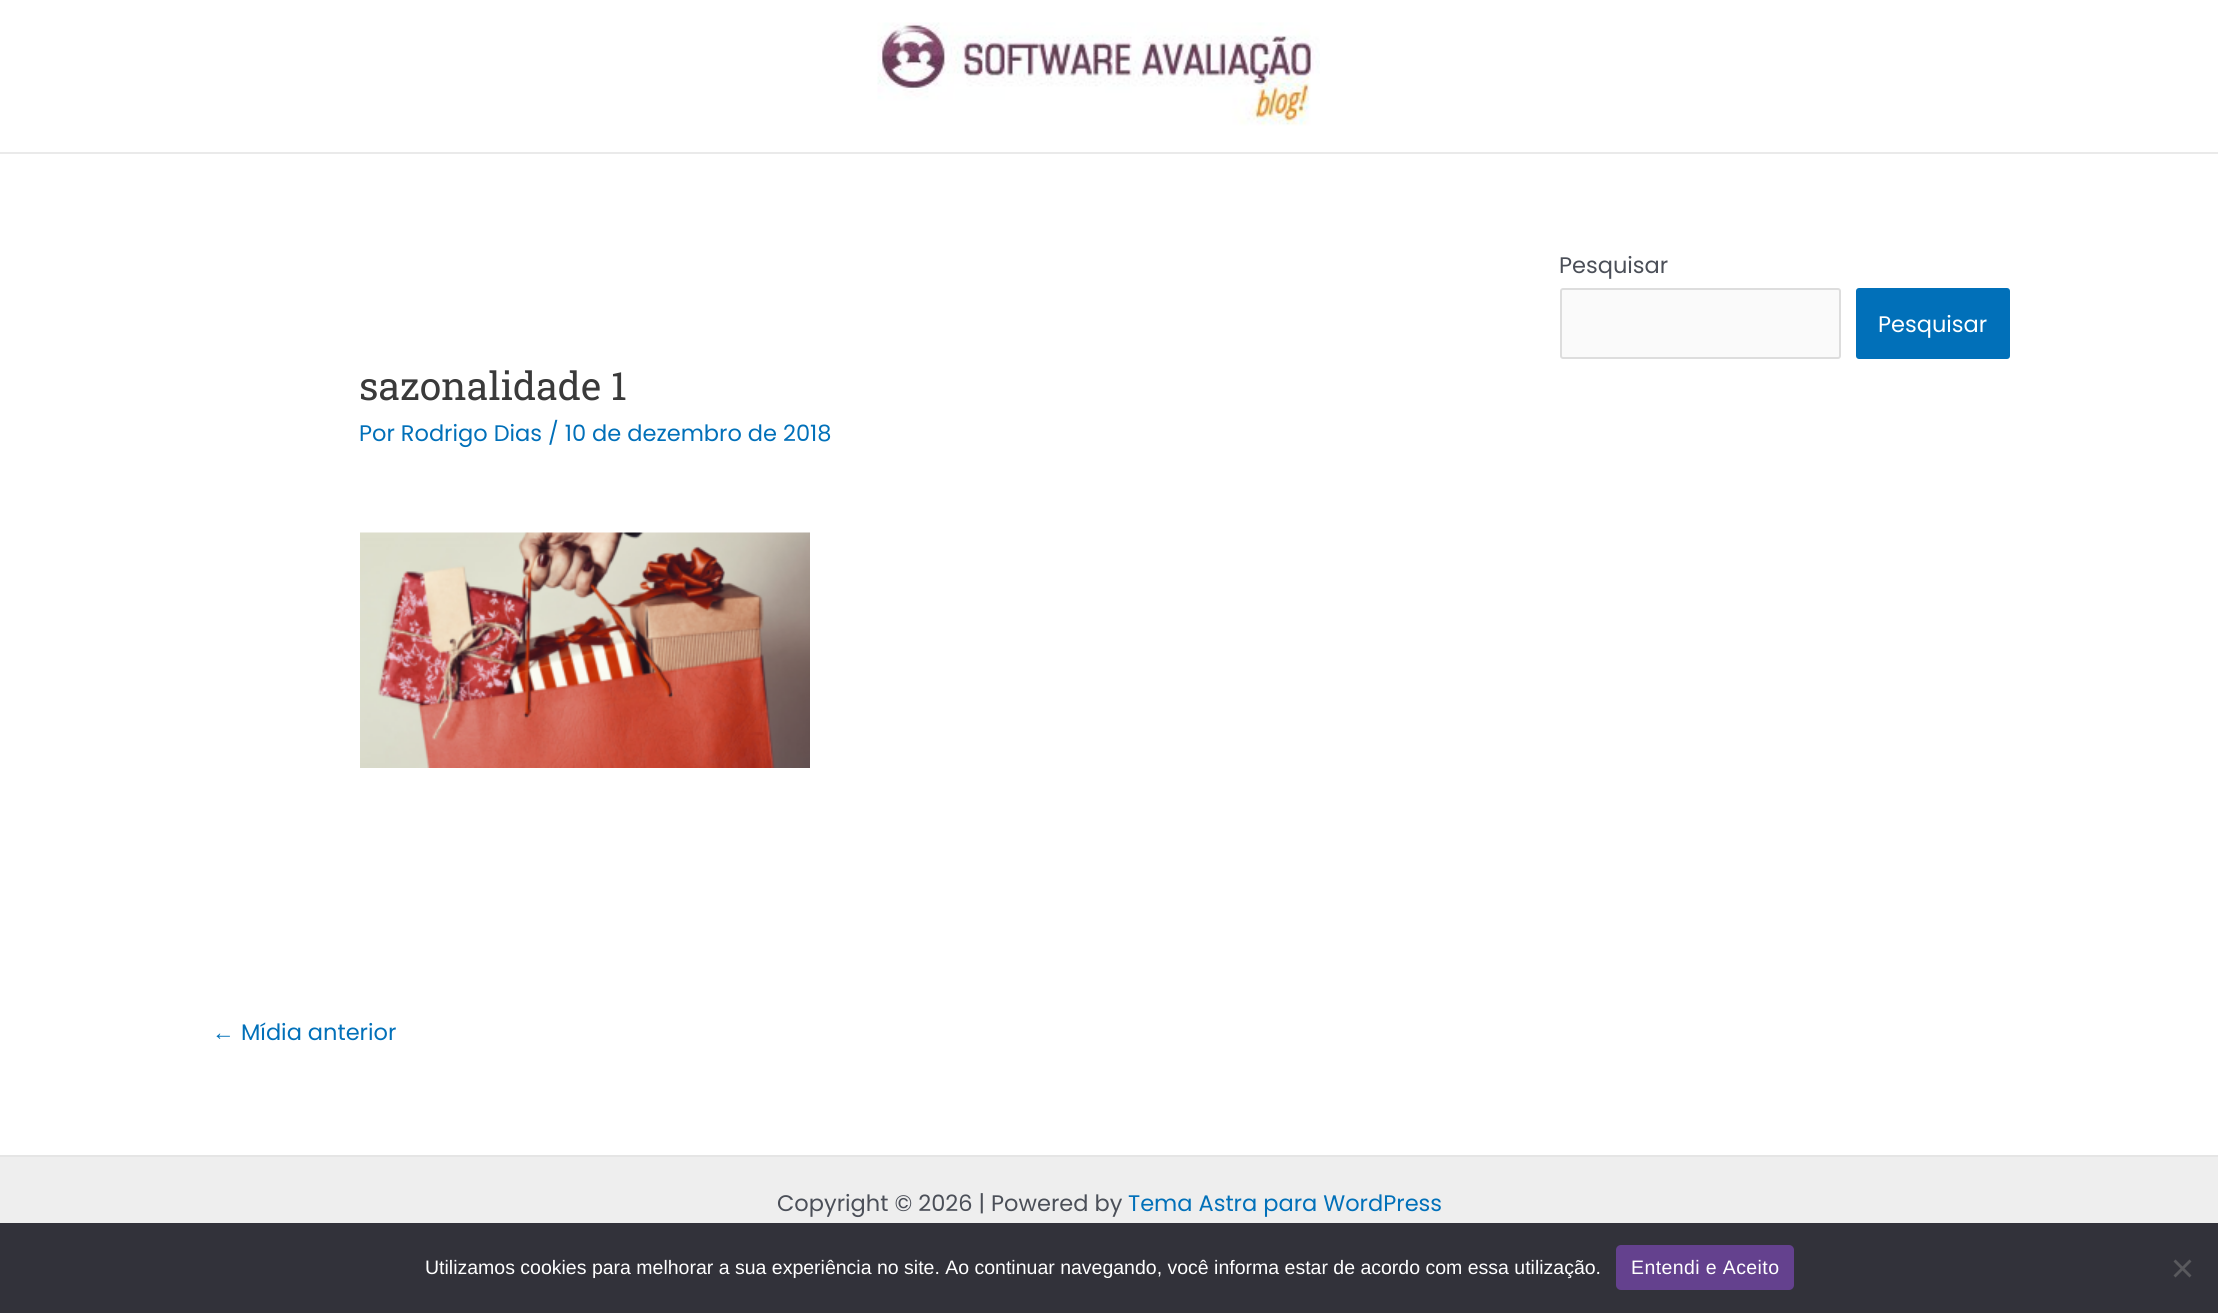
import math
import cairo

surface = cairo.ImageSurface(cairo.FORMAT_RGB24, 2218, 1313)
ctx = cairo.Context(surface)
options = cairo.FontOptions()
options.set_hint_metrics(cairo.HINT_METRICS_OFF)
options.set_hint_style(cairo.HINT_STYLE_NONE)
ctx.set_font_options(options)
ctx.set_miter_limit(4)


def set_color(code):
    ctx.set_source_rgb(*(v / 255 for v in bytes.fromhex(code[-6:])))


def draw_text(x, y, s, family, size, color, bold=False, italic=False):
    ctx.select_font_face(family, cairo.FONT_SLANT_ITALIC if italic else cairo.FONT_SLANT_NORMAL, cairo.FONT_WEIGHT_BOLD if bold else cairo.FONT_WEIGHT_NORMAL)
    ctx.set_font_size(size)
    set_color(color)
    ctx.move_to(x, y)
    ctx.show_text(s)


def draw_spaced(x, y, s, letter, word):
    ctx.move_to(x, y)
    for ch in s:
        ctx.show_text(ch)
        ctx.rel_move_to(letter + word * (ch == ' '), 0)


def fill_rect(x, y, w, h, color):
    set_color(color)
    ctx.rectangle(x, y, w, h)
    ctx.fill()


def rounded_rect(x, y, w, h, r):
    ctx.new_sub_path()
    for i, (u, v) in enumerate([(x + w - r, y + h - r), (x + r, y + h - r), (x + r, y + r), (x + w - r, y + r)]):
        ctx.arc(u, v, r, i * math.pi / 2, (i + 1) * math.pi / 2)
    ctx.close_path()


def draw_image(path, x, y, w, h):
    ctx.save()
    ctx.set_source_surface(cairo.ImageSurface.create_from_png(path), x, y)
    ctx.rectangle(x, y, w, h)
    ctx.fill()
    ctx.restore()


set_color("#ffffff")
ctx.paint()
fill_rect(0, 152, 2218, 2, "#eaeaea")
draw_image("assets/img1.png", 877, 22, 443, 104)
draw_text(1559, 273, "Pesquisar", "Poppins", 22.5, "#4b4f58")
set_color("#fafafa")
rounded_rect(1561, 289, 279, 69, 2)
ctx.fill_preserve()
set_color("#dddddd")
ctx.stroke()
set_color("#0170b9")
rounded_rect(1856, 288, 154, 71, 3)
ctx.fill()
draw_text(1878, 332, "Pesquisar", "Poppins", 22.5, "#ffffff")
draw_text(359, 400, "sazonalidade 1", "Roboto Slab", 39, "#3a3a3a")
draw_text(359, 441, "Por Rodrigo Dias / 10 de dezembro de 2018", "Poppins", 22.5, "#0170b9")
draw_image("assets/img2.png", 360, 532, 450, 236)
draw_text(212, 1040, "←", "Liberation Sans", 22.5, "#0170b9")
draw_text(241, 1040, "Mídia anterior", "Poppins", 22.5, "#0170b9")
fill_rect(0, 1157, 2218, 66, "#eeeeee")
fill_rect(0, 1155, 2218, 2, "#e5e5e5")
draw_text(777, 1211, "Copyright © 2026 | Powered by", "Poppins", 22.5, "#4b4f58")
draw_text(1128, 1211, "Tema Astra para WordPress", "Poppins", 22.5, "#0170b9")
fill_rect(0, 1223, 2218, 90, "#32323a")
draw_text(425, 1274, "Utilizamos cookies para melhorar a sua experiência no site. Ao continuar navegando, você informa estar de acordo com essa utilização.", "Liberation Sans", 19.5, "#ffffff")
set_color("#64418e")
rounded_rect(1616, 1245, 178, 45, 5)
ctx.fill()
set_color("#ffffff")
draw_spaced(1631, 1274, "Entendi e Aceito", 0.4, 0)
set_color("#59595d")
ctx.new_path()
ctx.move_to(2189.5, 1259.5)
ctx.line_to(2191.5, 1261.5)
ctx.line_to(2175.5, 1277.5)
ctx.line_to(2173.5, 1275.5)
ctx.close_path()
ctx.fill()
ctx.new_path()
ctx.move_to(2173.5, 1261.5)
ctx.line_to(2175.5, 1259.5)
ctx.line_to(2191.5, 1275.5)
ctx.line_to(2189.5, 1277.5)
ctx.close_path()
ctx.fill()
surface.write_to_png("output.png")
